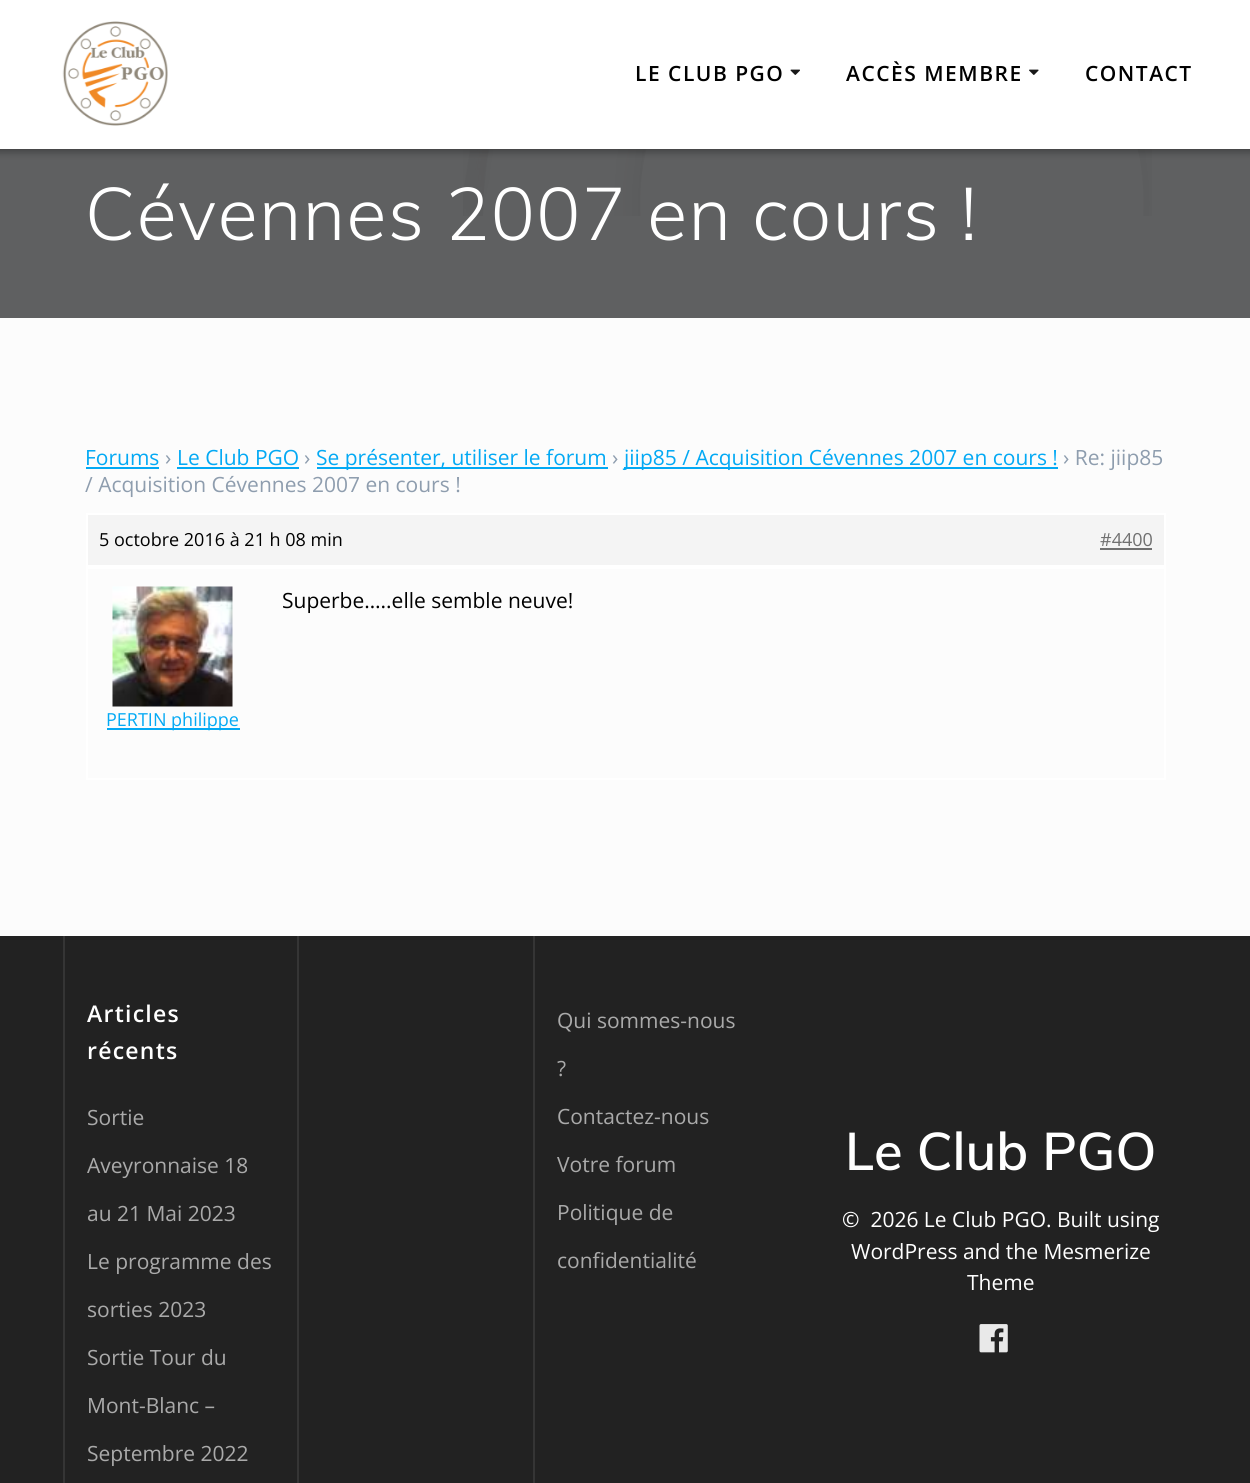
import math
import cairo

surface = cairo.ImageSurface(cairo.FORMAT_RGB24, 1250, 1483)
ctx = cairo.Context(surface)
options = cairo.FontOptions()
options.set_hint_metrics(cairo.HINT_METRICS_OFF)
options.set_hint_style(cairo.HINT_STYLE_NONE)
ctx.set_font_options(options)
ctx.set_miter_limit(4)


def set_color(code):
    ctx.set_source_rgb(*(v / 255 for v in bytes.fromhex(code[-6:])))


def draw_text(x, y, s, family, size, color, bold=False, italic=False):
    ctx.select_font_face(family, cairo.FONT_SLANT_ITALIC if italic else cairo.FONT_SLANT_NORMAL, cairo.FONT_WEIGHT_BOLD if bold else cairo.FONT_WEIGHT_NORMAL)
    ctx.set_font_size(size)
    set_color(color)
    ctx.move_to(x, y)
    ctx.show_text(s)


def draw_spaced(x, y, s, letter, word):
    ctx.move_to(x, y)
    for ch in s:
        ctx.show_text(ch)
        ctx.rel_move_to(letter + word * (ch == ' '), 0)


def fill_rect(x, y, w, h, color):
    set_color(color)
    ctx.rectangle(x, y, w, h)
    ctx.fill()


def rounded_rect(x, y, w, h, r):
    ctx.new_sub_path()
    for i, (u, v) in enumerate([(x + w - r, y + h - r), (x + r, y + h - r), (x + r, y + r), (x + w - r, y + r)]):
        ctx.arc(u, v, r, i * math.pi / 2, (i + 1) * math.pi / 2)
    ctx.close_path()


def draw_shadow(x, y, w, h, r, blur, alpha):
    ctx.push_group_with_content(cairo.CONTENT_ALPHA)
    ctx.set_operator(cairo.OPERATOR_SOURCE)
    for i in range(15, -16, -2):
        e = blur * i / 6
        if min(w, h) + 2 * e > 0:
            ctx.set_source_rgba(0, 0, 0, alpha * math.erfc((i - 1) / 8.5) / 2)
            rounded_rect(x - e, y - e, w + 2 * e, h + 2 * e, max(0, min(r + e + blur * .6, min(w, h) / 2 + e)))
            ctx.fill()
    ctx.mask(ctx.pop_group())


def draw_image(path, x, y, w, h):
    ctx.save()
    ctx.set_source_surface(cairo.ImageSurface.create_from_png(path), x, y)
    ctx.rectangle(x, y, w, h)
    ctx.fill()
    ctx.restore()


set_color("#fcfcfc")
ctx.paint()
fill_rect(0, 149, 1250, 169, "#5f6061")
draw_image("assets/img4.png", 463, 149, 689, 67)
set_color("#000000")
draw_shadow(-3, -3, 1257, 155, 0, 4, 0.33)
fill_rect(0, 0, 1250, 149, "#ffffff")
draw_image("assets/img1.png", 62, 21, 106, 105)
ctx.select_font_face("Open Sans SemiBold")
ctx.set_font_size(21)
set_color("#000000")
draw_spaced(635, 81, "LE CLUB PGO", 1.5, 0)
draw_image("assets/img2.png", 790, 69, 10, 6)
draw_spaced(846, 81, "ACCÈS MEMBRE", 1.5, 0)
draw_image("assets/img3.png", 1029, 69, 10, 6)
draw_spaced(1085, 81, "CONTACT", 1.5, 0)
ctx.select_font_face("Muli Light")
ctx.set_font_size(73.5)
set_color("#ffffff")
draw_spaced(85, 240, "Cévennes 2007 en cours !", 1.35, 0)
draw_text(85, 465, "Forums", "Open Sans", 21, "#03a9f4")
fill_rect(86, 467, 73, 2, "#03a9f4")
draw_text(165, 465, "›", "Open Sans", 21, "#8e9dae")
draw_text(177, 465, "Le Club PGO", "Open Sans", 21, "#03a9f4")
fill_rect(177, 467, 122, 2, "#03a9f4")
draw_text(304, 465, "›", "Open Sans", 21, "#8e9dae")
fill_rect(317, 467, 291, 2, "#03a9f4")
draw_text(316, 465, "Se présenter, utiliser le forum", "Open Sans", 21, "#03a9f4")
draw_text(612, 465, "›", "Open Sans", 21, "#8e9dae")
fill_rect(624, 467, 434, 2, "#03a9f4")
draw_text(624, 465, "jiip85 / Acquisition Cévennes 2007 en cours !", "Open Sans", 21, "#03a9f4")
draw_text(1063, 465, "› Re: jiip85", "Open Sans", 21, "#8e9dae")
draw_text(85, 492, "/ Acquisition Cévennes 2007 en cours !", "Open Sans", 21, "#8e9dae")
set_color("#f4f4f4")
ctx.rectangle(87, 514, 1078, 52)
ctx.fill_preserve()
set_color("#ffffff")
ctx.stroke()
draw_text(99, 546, "5 octobre 2016 à 21 h 08 min", "Open Sans", 18, "#000000")
draw_text(1100, 546, "#4400", "Open Sans", 18, "#707070")
fill_rect(1100, 548, 52, 2, "#707070")
ctx.rectangle(87, 568, 1078, 211)
set_color("#ffffff")
ctx.stroke()
draw_text(282, 608, "Superbe…..elle semble neuve!", "Open Sans", 21, "#000000")
draw_image("assets/img5.png", 112, 586, 121, 121)
fill_rect(107, 728, 133, 2, "#03a9f4")
draw_text(106, 726, "PERTIN philippe", "Open Sans", 18, "#03a9f4")
fill_rect(0, 936, 1250, 547, "#222222")
fill_rect(63, 936, 2, 547, "#353535")
ctx.select_font_face("Open Sans SemiBold")
ctx.set_font_size(23)
set_color("#ffffff")
draw_spaced(87, 1022, "Articles", 1.25, 0)
draw_spaced(87, 1059, "récents", 1.25, 0)
draw_text(87, 1125, "Sortie", "Open Sans", 21, "#aaaaaa")
draw_text(87, 1173, "Aveyronnaise 18", "Open Sans", 21, "#aaaaaa")
draw_text(87, 1221, "au 21 Mai 2023", "Open Sans", 21, "#aaaaaa")
draw_text(87, 1269, "Le programme des", "Open Sans", 21, "#aaaaaa")
draw_text(87, 1317, "sorties 2023", "Open Sans", 21, "#aaaaaa")
draw_text(87, 1365, "Sortie Tour du", "Open Sans", 21, "#aaaaaa")
draw_text(87, 1413, "Mont-Blanc –", "Open Sans", 21, "#aaaaaa")
draw_text(87, 1461, "Septembre 2022", "Open Sans", 21, "#aaaaaa")
fill_rect(297, 936, 2, 547, "#353535")
fill_rect(533, 936, 2, 547, "#353535")
draw_text(557, 1028, "Qui sommes-nous", "Open Sans", 21, "#aaaaaa")
draw_text(557, 1076, "?", "Open Sans", 21, "#aaaaaa")
draw_text(557, 1124, "Contactez-nous", "Open Sans", 21, "#aaaaaa")
draw_text(557, 1172, "Votre forum", "Open Sans", 21, "#aaaaaa")
draw_text(557, 1220, "Politique de", "Open Sans", 21, "#aaaaaa")
draw_text(557, 1268, "confidentialité", "Open Sans", 21, "#aaaaaa")
draw_text(845, 1170, "Le Club PGO", "Muli SemiBold", 52.5, "#ffffff")
draw_text(842, 1227, "©  2026 Le Club PGO. Built using", "Open Sans", 21, "#ffffff")
draw_text(851, 1259, "WordPress and the Mesmerize", "Open Sans", 21, "#ffffff")
draw_text(967, 1290, "Theme", "Open Sans", 21, "#ffffff")
draw_image("assets/img6.png", 979, 1324, 29, 29)
surface.write_to_png("output.png")
